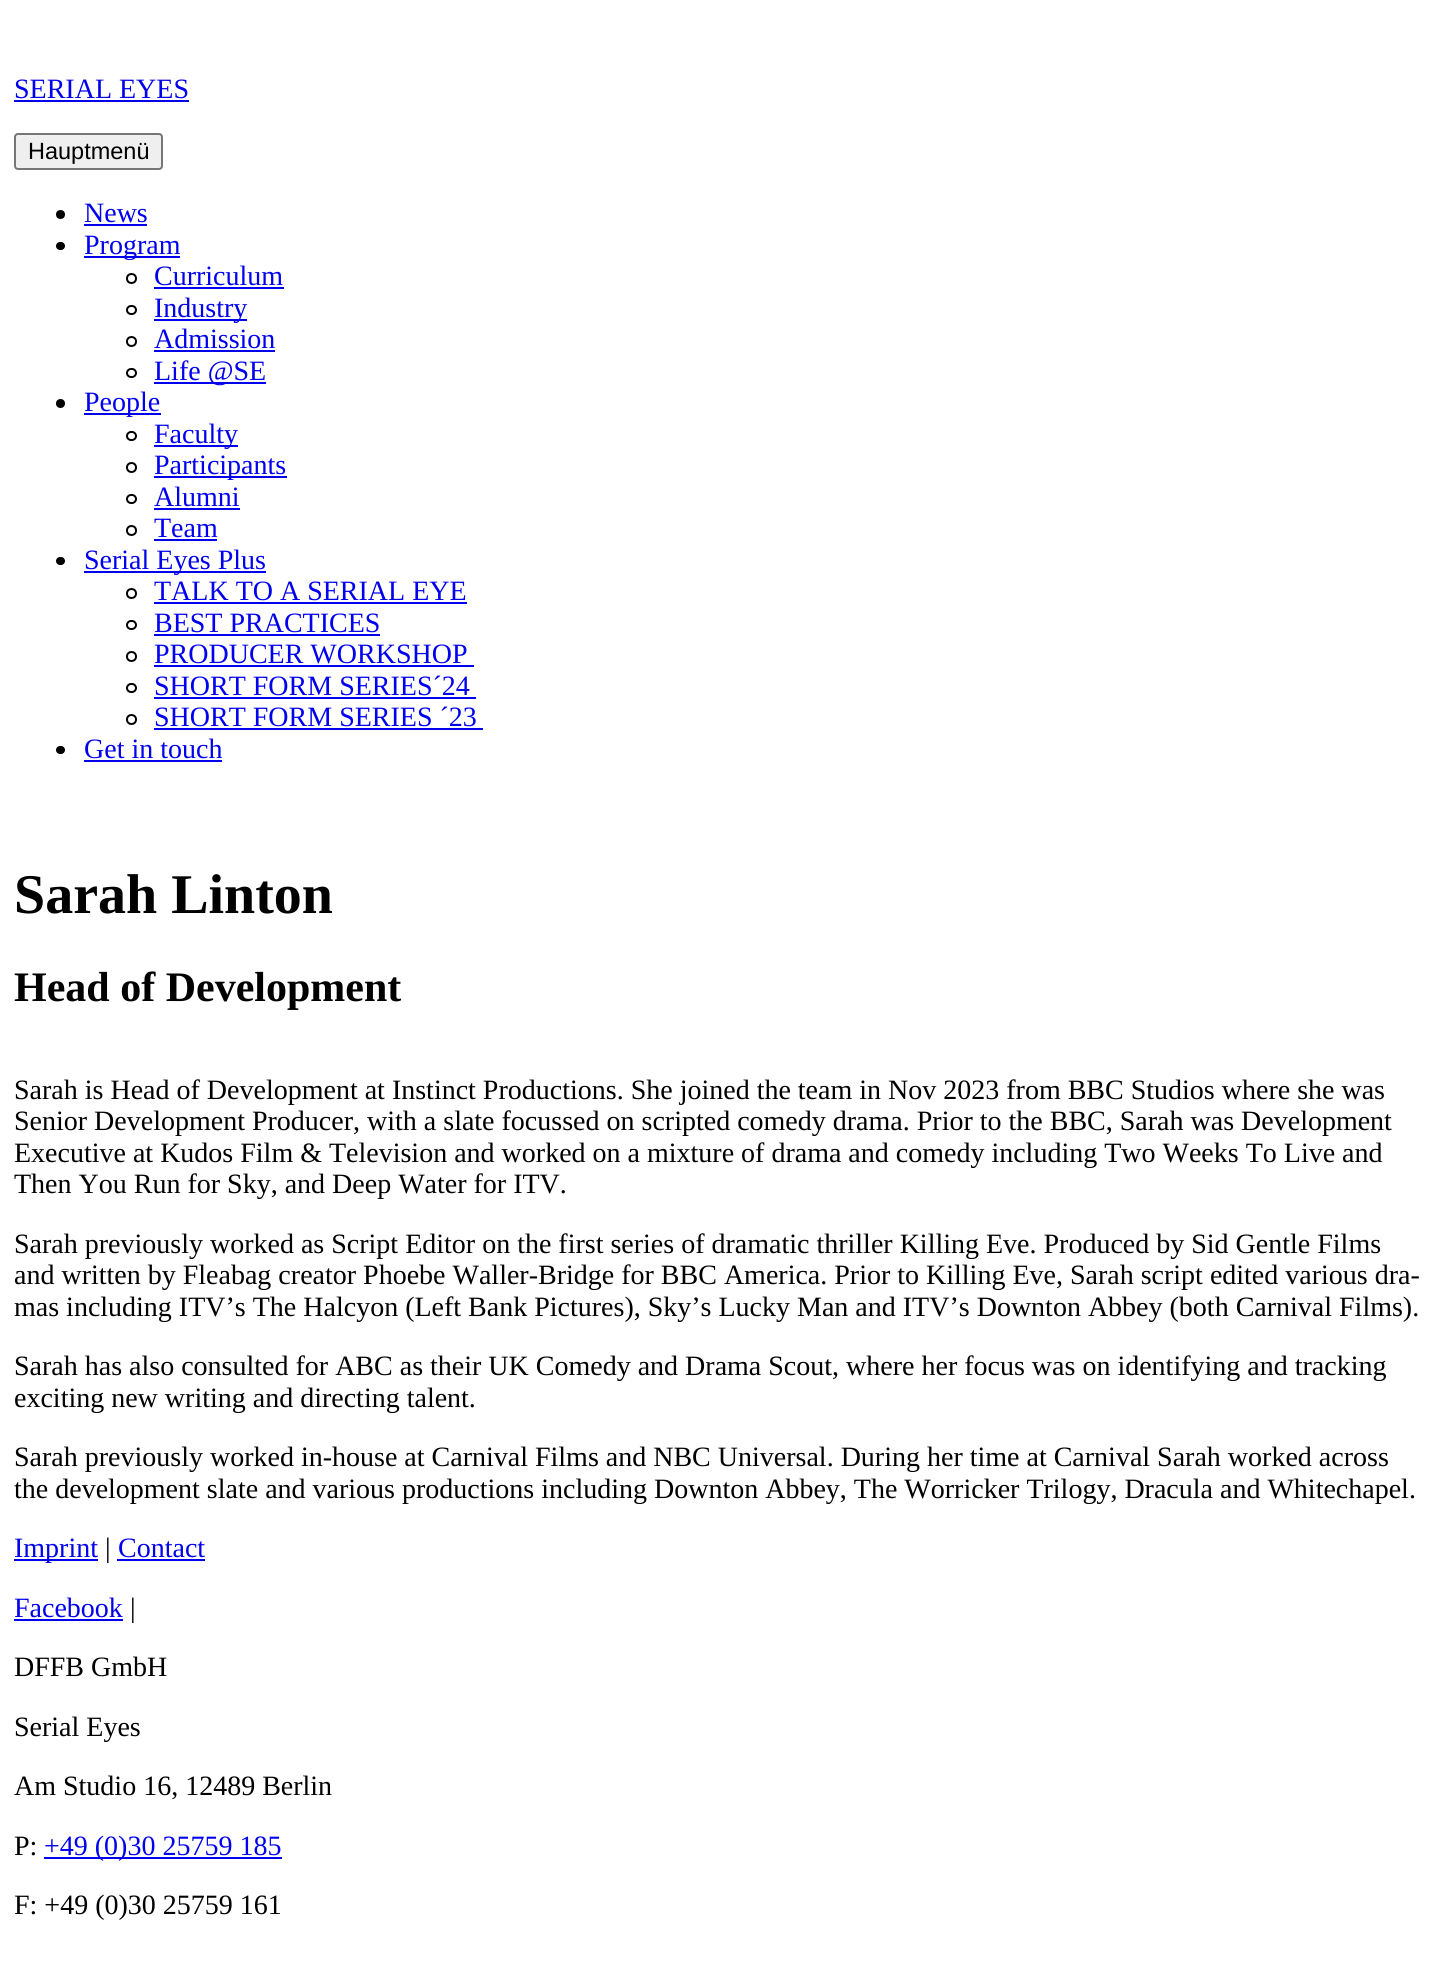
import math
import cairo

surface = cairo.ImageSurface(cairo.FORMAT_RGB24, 1440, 1965)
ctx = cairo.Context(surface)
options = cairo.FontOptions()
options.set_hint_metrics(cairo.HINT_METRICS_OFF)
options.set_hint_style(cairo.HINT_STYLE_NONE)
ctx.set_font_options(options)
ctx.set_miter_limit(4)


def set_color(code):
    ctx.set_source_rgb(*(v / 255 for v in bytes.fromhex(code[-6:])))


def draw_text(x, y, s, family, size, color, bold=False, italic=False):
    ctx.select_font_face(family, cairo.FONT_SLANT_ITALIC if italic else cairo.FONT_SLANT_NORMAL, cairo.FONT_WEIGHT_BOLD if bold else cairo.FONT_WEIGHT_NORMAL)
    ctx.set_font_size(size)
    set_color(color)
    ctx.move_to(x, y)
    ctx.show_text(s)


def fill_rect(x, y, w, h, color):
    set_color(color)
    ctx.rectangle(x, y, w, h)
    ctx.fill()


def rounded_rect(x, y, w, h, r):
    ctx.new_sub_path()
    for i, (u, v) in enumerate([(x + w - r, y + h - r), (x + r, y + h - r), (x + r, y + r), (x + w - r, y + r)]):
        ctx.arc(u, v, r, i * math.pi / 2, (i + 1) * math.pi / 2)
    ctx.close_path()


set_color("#ffffff")
ctx.paint()
draw_text(14, 98, "SERIAL EYES", "Liberation Serif", 28, "#0000ee")
fill_rect(14, 100, 175, 2, "#0000ee")
set_color("#efefef")
rounded_rect(15, 134, 147, 35, 3)
ctx.fill_preserve()
set_color("#767676")
ctx.stroke()
draw_text(28, 159, "Hauptmenü", "Liberation Sans", 23.5, "#000000")
ctx.new_path()
ctx.arc(60.5, 214.5, 4.5, 0, 2 * math.pi)
ctx.fill()
draw_text(84, 222, "News", "Liberation Serif", 28, "#0000ee")
fill_rect(84, 224, 63, 2, "#0000ee")
set_color("#000000")
rounded_rect(56, 242, 9, 8, 4)
ctx.fill()
fill_rect(84, 256, 96, 2, "#0000ee")
draw_text(84, 254, "Program", "Liberation Serif", 28, "#0000ee")
ctx.new_path()
ctx.arc(131.5, 278.5, 4.5, 0, 2 * math.pi)
set_color("#000000")
ctx.stroke()
draw_text(154, 285, "Curriculum", "Liberation Serif", 28, "#0000ee")
fill_rect(154, 287, 130, 2, "#0000ee")
rounded_rect(127, 306, 9, 8, 4)
set_color("#000000")
ctx.stroke()
fill_rect(154, 319, 93, 2, "#0000ee")
draw_text(154, 317, "Industry", "Liberation Serif", 28, "#0000ee")
ctx.new_path()
ctx.arc(131.5, 341.5, 4.5, 0, 2 * math.pi)
set_color("#000000")
ctx.stroke()
draw_text(154, 348, "Admission", "Liberation Serif", 28, "#0000ee")
fill_rect(154, 350, 121, 2, "#0000ee")
rounded_rect(127, 369, 9, 8, 4)
set_color("#000000")
ctx.stroke()
fill_rect(154, 382, 112, 2, "#0000ee")
draw_text(154, 380, "Life @SE", "Liberation Serif", 28, "#0000ee")
set_color("#000000")
ctx.new_path()
ctx.arc(60.5, 403.5, 4.5, 0, 2 * math.pi)
ctx.fill()
fill_rect(84, 413, 77, 2, "#0000ee")
draw_text(84, 411, "People", "Liberation Serif", 28, "#0000ee")
rounded_rect(127, 432, 9, 8, 4)
set_color("#000000")
ctx.stroke()
fill_rect(154, 445, 84, 2, "#0000ee")
draw_text(154, 443, "Faculty", "Liberation Serif", 28, "#0000ee")
ctx.new_path()
ctx.arc(131.5, 467.5, 4.5, 0, 2 * math.pi)
set_color("#000000")
ctx.stroke()
fill_rect(154, 476, 133, 2, "#0000ee")
draw_text(154, 474, "Participants", "Liberation Serif", 28, "#0000ee")
rounded_rect(127, 495, 9, 8, 4)
set_color("#000000")
ctx.stroke()
draw_text(154, 506, "Alumni", "Liberation Serif", 28, "#0000ee")
fill_rect(154, 508, 86, 2, "#0000ee")
ctx.new_path()
ctx.arc(131.5, 530.5, 4.5, 0, 2 * math.pi)
set_color("#000000")
ctx.stroke()
draw_text(154, 537, "Team", "Liberation Serif", 28, "#0000ee")
fill_rect(154, 539, 63, 2, "#0000ee")
set_color("#000000")
rounded_rect(56, 557, 9, 8, 4)
ctx.fill()
fill_rect(84, 571, 182, 2, "#0000ee")
draw_text(84, 569, "Serial Eyes Plus", "Liberation Serif", 28, "#0000ee")
ctx.new_path()
ctx.arc(131.5, 593.5, 4.5, 0, 2 * math.pi)
set_color("#000000")
ctx.stroke()
draw_text(154, 600, "TALK TO A SERIAL EYE", "Liberation Serif", 28, "#0000ee")
fill_rect(154, 602, 313, 2, "#0000ee")
rounded_rect(127, 621, 9, 8, 4)
set_color("#000000")
ctx.stroke()
draw_text(154, 632, "BEST PRACTICES", "Liberation Serif", 28, "#0000ee")
fill_rect(154, 634, 226, 2, "#0000ee")
ctx.new_path()
ctx.arc(131.5, 656.5, 4.5, 0, 2 * math.pi)
set_color("#000000")
ctx.stroke()
draw_text(154, 663, "PRODUCER WORKSHOP", "Liberation Serif", 28, "#0000ee")
fill_rect(154, 665, 320, 2, "#0000ee")
rounded_rect(127, 684, 9, 8, 4)
set_color("#000000")
ctx.stroke()
draw_text(154, 695, "SHORT FORM SERIES´24", "Liberation Serif", 28, "#0000ee")
fill_rect(154, 697, 322, 2, "#0000ee")
ctx.new_path()
ctx.arc(131.5, 719.5, 4.5, 0, 2 * math.pi)
set_color("#000000")
ctx.stroke()
draw_text(154, 726, "SHORT FORM SERIES ´23", "Liberation Serif", 28, "#0000ee")
fill_rect(154, 728, 329, 2, "#0000ee")
set_color("#000000")
rounded_rect(56, 746, 9, 8, 4)
ctx.fill()
draw_text(84, 758, "Get in touch", "Liberation Serif", 28, "#0000ee")
fill_rect(84, 760, 138, 2, "#0000ee")
draw_text(14, 913, "Sarah Linton", "Liberation Serif", 56, "#000000", bold=True)
draw_text(14, 1001, "Head of Development", "Liberation Serif", 42, "#000000", bold=True)
draw_text(14, 1099, "Sarah is Head of Development at Instinct Productions. She joined the team in Nov 2023 from BBC Studios where she was", "Liberation Serif", 28, "#000000")
draw_text(14, 1130, "Senior Development Producer, with a slate focussed on scripted comedy drama. Prior to the BBC, Sarah was Development", "Liberation Serif", 28, "#000000")
draw_text(14, 1162, "Executive at Kudos Film & Television and worked on a mixture of drama and comedy including Two Weeks To Live and", "Liberation Serif", 28, "#000000")
draw_text(14, 1193, "Then You Run for Sky, and Deep Water for ITV.", "Liberation Serif", 28, "#000000")
draw_text(14, 1253, "Sarah previously worked as Script Editor on the first series of dramatic thriller Killing Eve. Produced by Sid Gentle Films", "Liberation Serif", 28, "#000000")
draw_text(14, 1284, "and written by Fleabag creator Phoebe Waller-Bridge for BBC America. Prior to Killing Eve, Sarah script edited various dra-", "Liberation Serif", 28, "#000000")
draw_text(14, 1316, "mas including ITV’s The Halcyon (Left Bank Pictures), Sky’s Lucky Man and ITV’s Downton Abbey (both Carnival Films).", "Liberation Serif", 28, "#000000")
draw_text(14, 1375, "Sarah has also consulted for ABC as their UK Comedy and Drama Scout, where her focus was on identifying and tracking", "Liberation Serif", 28, "#000000")
draw_text(14, 1407, "exciting new writing and directing talent.", "Liberation Serif", 28, "#000000")
draw_text(14, 1466, "Sarah previously worked in-house at Carnival Films and NBC Universal. During her time at Carnival Sarah worked across", "Liberation Serif", 28, "#000000")
draw_text(14, 1498, "the development slate and various productions including Downton Abbey, The Worricker Trilogy, Dracula and Whitechapel.", "Liberation Serif", 28, "#000000")
fill_rect(14, 1559, 84, 2, "#0000ee")
draw_text(14, 1557, "Imprint", "Liberation Serif", 28, "#0000ee")
draw_text(105, 1557, "|", "Liberation Serif", 28, "#000000")
draw_text(118, 1557, "Contact", "Liberation Serif", 28, "#0000ee")
fill_rect(117, 1559, 88, 2, "#0000ee")
draw_text(14, 1617, "Facebook", "Liberation Serif", 28, "#0000ee")
fill_rect(14, 1619, 109, 2, "#0000ee")
draw_text(130, 1617, "|", "Liberation Serif", 28, "#000000")
draw_text(14, 1676, "DFFB GmbH", "Liberation Serif", 28, "#000000")
draw_text(14, 1736, "Serial Eyes", "Liberation Serif", 28, "#000000")
draw_text(14, 1795, "Am Studio 16, 12489 Berlin", "Liberation Serif", 28, "#000000")
draw_text(14, 1855, "P:", "Liberation Serif", 28, "#000000")
fill_rect(44, 1857, 238, 2, "#0000ee")
draw_text(44, 1855, "+49 (0)30 25759 185", "Liberation Serif", 28, "#0000ee")
draw_text(14, 1914, "F: +49 (0)30 25759 161", "Liberation Serif", 28, "#000000")
surface.write_to_png("output.png")
